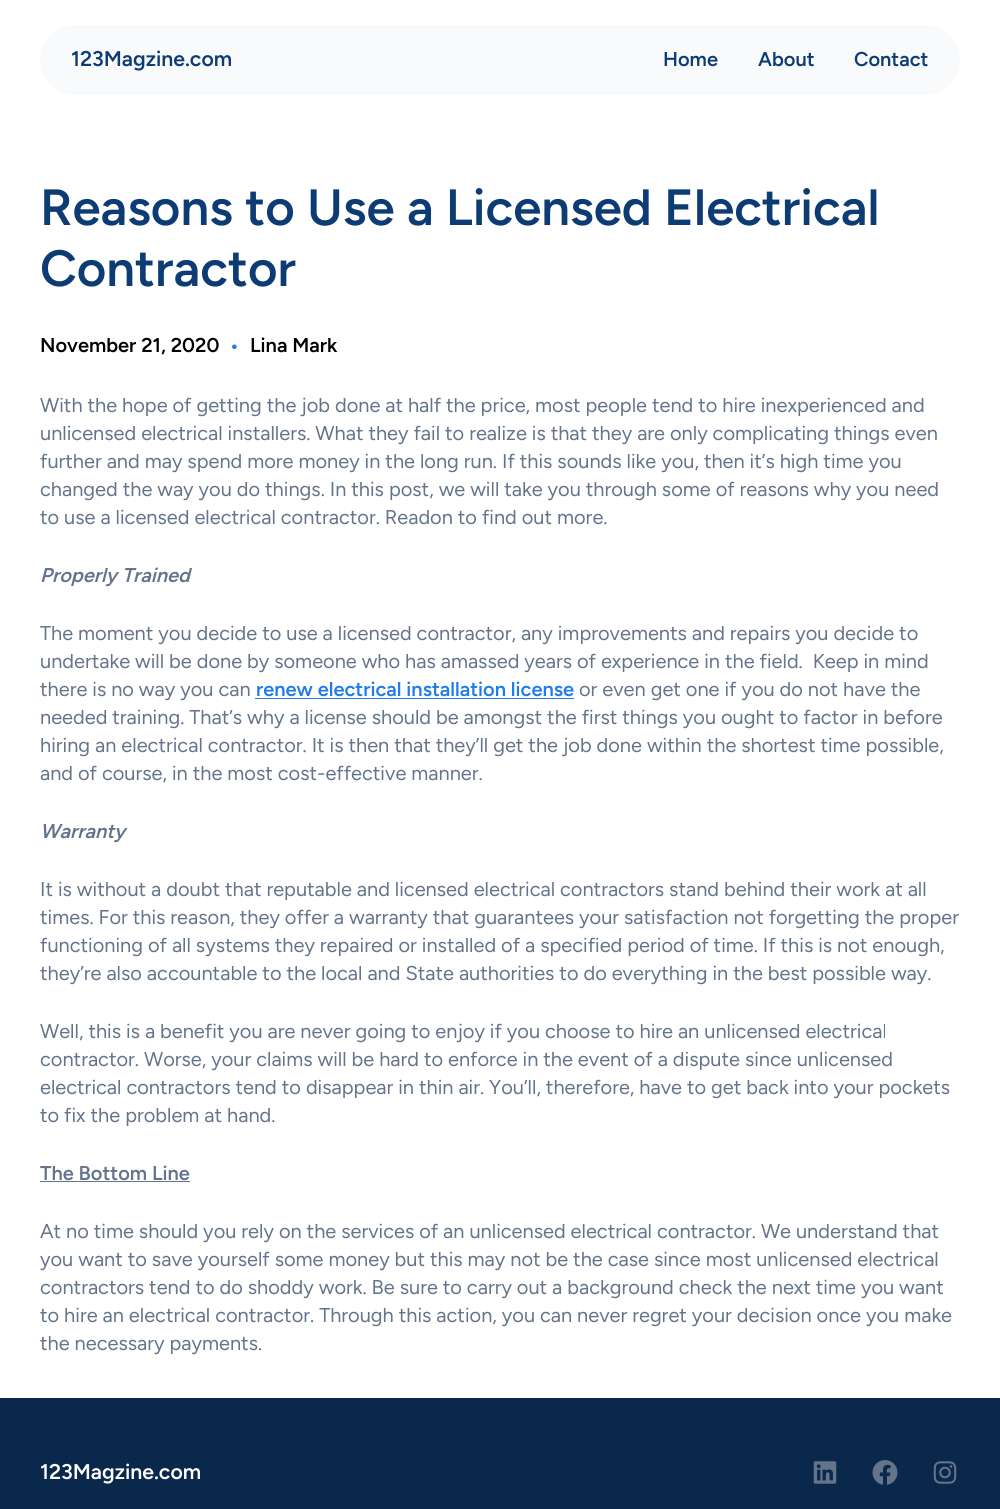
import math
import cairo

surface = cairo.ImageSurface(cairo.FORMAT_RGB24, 1000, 1509)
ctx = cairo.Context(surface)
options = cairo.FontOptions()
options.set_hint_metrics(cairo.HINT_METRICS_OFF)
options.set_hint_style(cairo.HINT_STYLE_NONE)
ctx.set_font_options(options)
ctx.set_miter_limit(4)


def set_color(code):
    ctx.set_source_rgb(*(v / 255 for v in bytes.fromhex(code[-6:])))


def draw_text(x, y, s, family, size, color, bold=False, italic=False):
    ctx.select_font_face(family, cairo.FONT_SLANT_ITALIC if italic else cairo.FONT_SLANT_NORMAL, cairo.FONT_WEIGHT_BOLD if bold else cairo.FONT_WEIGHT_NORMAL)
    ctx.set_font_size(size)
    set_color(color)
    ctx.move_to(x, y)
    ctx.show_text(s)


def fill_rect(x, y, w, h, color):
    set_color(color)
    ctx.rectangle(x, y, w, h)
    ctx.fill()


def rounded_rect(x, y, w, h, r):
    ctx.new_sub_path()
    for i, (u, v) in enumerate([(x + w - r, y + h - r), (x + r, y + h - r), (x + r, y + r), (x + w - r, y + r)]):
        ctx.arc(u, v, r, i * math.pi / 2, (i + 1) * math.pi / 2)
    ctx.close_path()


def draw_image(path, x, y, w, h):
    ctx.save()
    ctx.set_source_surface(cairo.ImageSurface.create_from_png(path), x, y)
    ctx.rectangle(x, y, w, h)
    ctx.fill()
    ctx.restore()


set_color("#ffffff")
ctx.paint()
set_color("#f8fafc")
rounded_rect(40, 25, 920, 70, 35)
ctx.fill()
draw_text(71, 66, "123Magzine.com", "Figtree SemiBold", 21.25, "#0d3c74")
draw_text(663, 66, "Home", "Figtree SemiBold", 20, "#0d3c74")
draw_text(758, 66, "About", "Figtree SemiBold", 20, "#0d3c74")
draw_text(854, 66, "Contact", "Figtree SemiBold", 20, "#0d3c74")
draw_text(40, 225, "Reasons to Use a Licensed Electrical", "Figtree SemiBold", 50.9, "#0d3c74")
draw_text(40, 286, "Contractor", "Figtree SemiBold", 50.9, "#0d3c74")
draw_text(40, 352, "November 21, 2020", "Figtree SemiBold", 20, "#000000")
draw_text(229, 353, "•", "Figtree", 22, "#1f7cec")
draw_text(250, 352, "Lina Mark", "Figtree SemiBold", 20, "#000000")
draw_text(40, 412, "With the hope of getting the job done at half the price, most people tend to hire inexperienced and", "Figtree", 20, "#64748b")
draw_text(40, 440, "unlicensed electrical installers. What they fail to realize is that they are only complicating things even", "Figtree", 20, "#64748b")
draw_text(40, 468, "further and may spend more money in the long run. If this sounds like you, then it’s high time you", "Figtree", 20, "#64748b")
draw_text(40, 496, "changed the way you do things. In this post, we will take you through some of reasons why you need", "Figtree", 20, "#64748b")
draw_text(40, 524, "to use a licensed electrical contractor. Readon to find out more.", "Figtree", 20, "#64748b")
draw_text(40, 582, "Properly Trained", "Figtree SemiBold", 20, "#64748b", italic=True)
draw_text(40, 640, "The moment you decide to use a licensed contractor, any improvements and repairs you decide to", "Figtree", 20, "#64748b")
draw_text(40, 668, "undertake will be done by someone who has amassed years of experience in the field.  Keep in mind", "Figtree", 20, "#64748b")
draw_text(40, 696, "there is no way you can", "Figtree", 20, "#64748b")
draw_text(256, 696, "renew electrical installation license", "Figtree SemiBold", 20, "#1f7cec")
fill_rect(255, 698, 319, 1, "#1f7cec")
draw_text(579, 696, "or even get one if you do not have the", "Figtree", 20, "#64748b")
draw_text(40, 724, "needed training. That’s why a license should be amongst the first things you ought to factor in before", "Figtree", 20, "#64748b")
draw_text(40, 752, "hiring an electrical contractor. It is then that they’ll get the job done within the shortest time possible,", "Figtree", 20, "#64748b")
draw_text(40, 780, "and of course, in the most cost-effective manner.", "Figtree", 20, "#64748b")
draw_text(40, 838, "Warranty", "Figtree SemiBold", 20, "#64748b", italic=True)
draw_text(40, 896, "It is without a doubt that reputable and licensed electrical contractors stand behind their work at all", "Figtree", 20, "#64748b")
draw_text(40, 924, "times. For this reason, they offer a warranty that guarantees your satisfaction not forgetting the proper", "Figtree", 20, "#64748b")
draw_text(40, 952, "functioning of all systems they repaired or installed of a specified period of time. If this is not enough,", "Figtree", 20, "#64748b")
draw_text(40, 980, "they’re also accountable to the local and State authorities to do everything in the best possible way.", "Figtree", 20, "#64748b")
draw_text(40, 1038, "Well, this is a benefit you are never going to enjoy if you choose to hire an unlicensed electrical", "Figtree", 20, "#64748b")
draw_text(40, 1066, "contractor. Worse, your claims will be hard to enforce in the event of a dispute since unlicensed", "Figtree", 20, "#64748b")
draw_text(40, 1094, "electrical contractors tend to disappear in thin air. You’ll, therefore, have to get back into your pockets", "Figtree", 20, "#64748b")
draw_text(40, 1122, "to fix the problem at hand.", "Figtree", 20, "#64748b")
draw_text(40, 1180, "The Bottom Line", "Figtree SemiBold", 20, "#64748b")
fill_rect(40, 1181, 150, 1, "#64748b")
draw_text(40, 1238, "At no time should you rely on the services of an unlicensed electrical contractor. We understand that", "Figtree", 20, "#64748b")
draw_text(40, 1266, "you want to save yourself some money but this may not be the case since most unlicensed electrical", "Figtree", 20, "#64748b")
draw_text(40, 1294, "contractors tend to do shoddy work. Be sure to carry out a background check the next time you want", "Figtree", 20, "#64748b")
draw_text(40, 1322, "to hire an electrical contractor. Through this action, you can never regret your decision once you make", "Figtree", 20, "#64748b")
draw_text(40, 1350, "the necessary payments.", "Figtree", 20, "#64748b")
fill_rect(0, 1398, 1000, 111, "#0a284b")
draw_text(40, 1479, "123Magzine.com", "Figtree SemiBold", 21.25, "#ffffff")
draw_image("assets/img1.png", 813, 1461, 24, 23)
draw_image("assets/img2.png", 872, 1460, 26, 25)
draw_image("assets/img3.png", 933, 1461, 24, 23)
surface.write_to_png("output.png")
